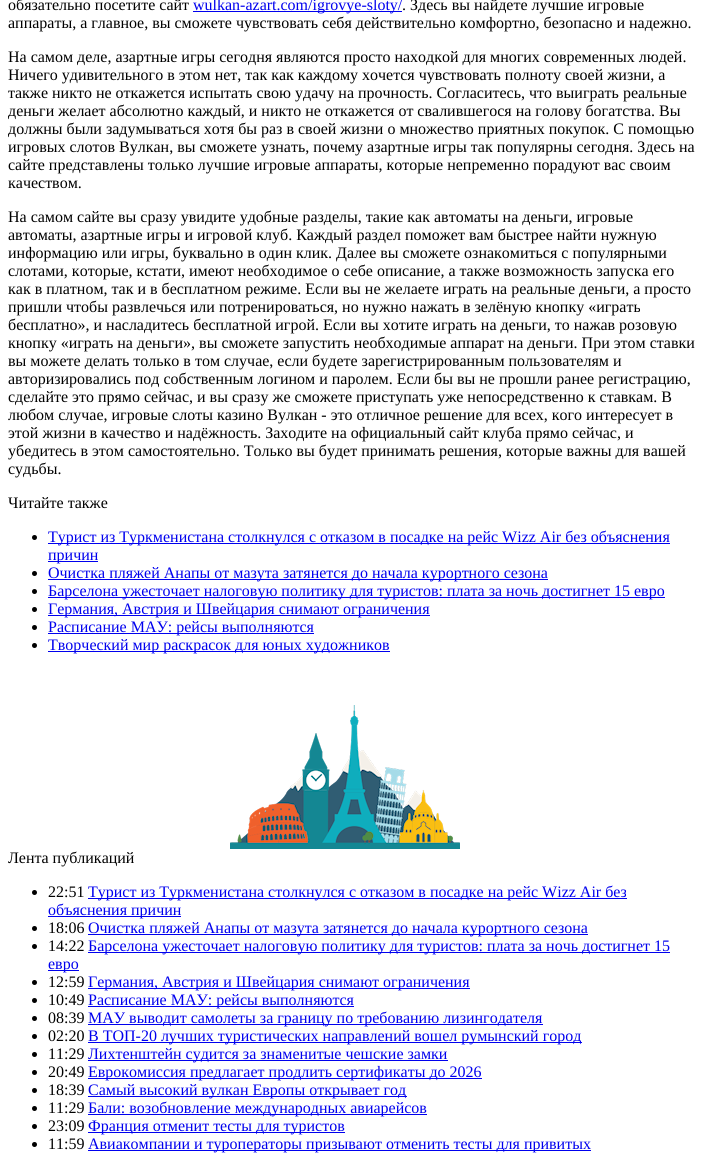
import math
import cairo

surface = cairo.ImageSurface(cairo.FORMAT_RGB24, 704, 1158)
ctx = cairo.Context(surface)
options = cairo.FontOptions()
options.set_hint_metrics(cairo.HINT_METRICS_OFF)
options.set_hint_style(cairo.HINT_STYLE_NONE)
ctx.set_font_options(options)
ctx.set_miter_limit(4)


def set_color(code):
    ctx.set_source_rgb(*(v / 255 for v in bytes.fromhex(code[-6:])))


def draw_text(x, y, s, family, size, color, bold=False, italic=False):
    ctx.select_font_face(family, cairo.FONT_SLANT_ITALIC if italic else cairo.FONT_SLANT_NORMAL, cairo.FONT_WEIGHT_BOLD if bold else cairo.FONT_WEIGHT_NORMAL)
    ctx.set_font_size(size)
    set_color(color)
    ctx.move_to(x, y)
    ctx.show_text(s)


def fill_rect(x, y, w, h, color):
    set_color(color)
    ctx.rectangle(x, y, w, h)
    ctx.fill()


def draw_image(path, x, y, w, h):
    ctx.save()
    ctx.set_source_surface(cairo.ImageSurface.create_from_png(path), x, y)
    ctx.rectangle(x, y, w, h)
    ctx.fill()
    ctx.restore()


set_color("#ffffff")
ctx.paint()
draw_text(8, 10, "обязательно посетите сайт", "Liberation Serif", 16, "#000000")
fill_rect(193, 11, 209, 1, "#0000ee")
draw_text(193, 10, "wulkan-azart.com/igrovye-sloty/", "Liberation Serif", 16, "#0000ee")
draw_text(402, 10, ". Здесь вы найдете лучшие игровые", "Liberation Serif", 16, "#000000")
draw_text(8, 28, "аппараты, а главное, вы сможете чувствовать себя действительно комфортно, безопасно и надежно.", "Liberation Serif", 16, "#000000")
draw_text(8, 62, "На самом деле, азартные игры сегодня являются просто находкой для многих современных людей.", "Liberation Serif", 16, "#000000")
draw_text(8, 80, "Ничего удивительного в этом нет, так как каждому хочется чувствовать полноту своей жизни, а", "Liberation Serif", 16, "#000000")
draw_text(8, 98, "также никто не откажется испытать свою удачу на прочность. Согласитесь, что выиграть реальные", "Liberation Serif", 16, "#000000")
draw_text(8, 116, "деньги желает абсолютно каждый, и никто не откажется от свалившегося на голову богатства. Вы", "Liberation Serif", 16, "#000000")
draw_text(8, 134, "должны были задумываться хотя бы раз в своей жизни о множество приятных покупок. С помощью", "Liberation Serif", 16, "#000000")
draw_text(8, 152, "игровых слотов Вулкан, вы сможете узнать, почему азартные игры так популярны сегодня. Здесь на", "Liberation Serif", 16, "#000000")
draw_text(8, 170, "сайте представлены только лучшие игровые аппараты, которые непременно порадуют вас своим", "Liberation Serif", 16, "#000000")
draw_text(8, 188, "качеством.", "Liberation Serif", 16, "#000000")
draw_text(8, 222, "На самом сайте вы сразу увидите удобные разделы, такие как автоматы на деньги, игровые", "Liberation Serif", 16, "#000000")
draw_text(8, 240, "автоматы, азартные игры и игровой клуб. Каждый раздел поможет вам быстрее найти нужную", "Liberation Serif", 16, "#000000")
draw_text(8, 258, "информацию или игры, буквально в один клик. Далее вы сможете ознакомиться с популярными", "Liberation Serif", 16, "#000000")
draw_text(8, 276, "слотами, которые, кстати, имеют необходимое о себе описание, а также возможность запуска его", "Liberation Serif", 16, "#000000")
draw_text(8, 294, "как в платном, так и в бесплатном режиме. Если вы не желаете играть на реальные деньги, а просто", "Liberation Serif", 16, "#000000")
draw_text(8, 312, "пришли чтобы развлечься или потренироваться, но нужно нажать в зелёную кнопку «играть", "Liberation Serif", 16, "#000000")
draw_text(8, 330, "бесплатно», и насладитесь бесплатной игрой. Если вы хотите играть на деньги, то нажав розовую", "Liberation Serif", 16, "#000000")
draw_text(8, 348, "кнопку «играть на деньги», вы сможете запустить необходимые аппарат на деньги. При этом ставки", "Liberation Serif", 16, "#000000")
draw_text(8, 366, "вы можете делать только в том случае, если будете зарегистрированным пользователям и", "Liberation Serif", 16, "#000000")
draw_text(8, 384, "авторизировались под собственным логином и паролем. Если бы вы не прошли ранее регистрацию,", "Liberation Serif", 16, "#000000")
draw_text(8, 402, "сделайте это прямо сейчас, и вы сразу же сможете приступать уже непосредственно к ставкам. В", "Liberation Serif", 16, "#000000")
draw_text(8, 420, "любом случае, игровые слоты казино Вулкан - это отличное решение для всех, кого интересует в", "Liberation Serif", 16, "#000000")
draw_text(8, 438, "этой жизни в качество и надёжность. Заходите на официальный сайт клуба прямо сейчас, и", "Liberation Serif", 16, "#000000")
draw_text(8, 456, "убедитесь в этом самостоятельно. Только вы будет принимать решения, которые важны для вашей", "Liberation Serif", 16, "#000000")
draw_text(8, 474, "судьбы.", "Liberation Serif", 16, "#000000")
draw_text(8, 508, "Читайте также", "Liberation Serif", 16, "#000000")
ctx.new_path()
ctx.arc(34.5, 537.5, 2.5, 0, 2 * math.pi)
ctx.fill()
fill_rect(48, 543, 622, 1, "#0000ee")
draw_text(48, 542, "Турист из Туркменистана столкнулся с отказом в посадке на рейс Wizz Air без объяснения", "Liberation Serif", 16, "#0000ee")
fill_rect(48, 561, 50, 1, "#0000ee")
draw_text(48, 560, "причин", "Liberation Serif", 16, "#0000ee")
set_color("#000000")
ctx.new_path()
ctx.arc(34.5, 573.5, 2.5, 0, 2 * math.pi)
ctx.fill()
fill_rect(48, 579, 500, 1, "#0000ee")
draw_text(48, 578, "Очистка пляжей Анапы от мазута затянется до начала курортного сезона", "Liberation Serif", 16, "#0000ee")
set_color("#000000")
ctx.new_path()
ctx.arc(34.5, 591.5, 2.5, 0, 2 * math.pi)
ctx.fill()
fill_rect(48, 597, 617, 1, "#0000ee")
draw_text(48, 596, "Барселона ужесточает налоговую политику для туристов: плата за ночь достигнет 15 евро", "Liberation Serif", 16, "#0000ee")
set_color("#000000")
ctx.new_path()
ctx.arc(34.5, 609.5, 2.5, 0, 2 * math.pi)
ctx.fill()
fill_rect(48, 615, 382, 1, "#0000ee")
draw_text(48, 614, "Германия, Австрия и Швейцария снимают ограничения", "Liberation Serif", 16, "#0000ee")
set_color("#000000")
ctx.new_path()
ctx.arc(34.5, 627.5, 2.5, 0, 2 * math.pi)
ctx.fill()
fill_rect(48, 633, 266, 1, "#0000ee")
draw_text(48, 632, "Расписание МАУ: рейсы выполняются", "Liberation Serif", 16, "#0000ee")
set_color("#000000")
ctx.new_path()
ctx.arc(34.5, 645.5, 2.5, 0, 2 * math.pi)
ctx.fill()
fill_rect(48, 651, 342, 1, "#0000ee")
draw_text(48, 650, "Творческий мир раскрасок для юных художников", "Liberation Serif", 16, "#0000ee")
draw_image("assets/img1.png", 230, 705, 230, 144)
draw_text(8, 863, "Лента публикаций", "Liberation Serif", 16, "#000000")
ctx.new_path()
ctx.arc(34.5, 892.5, 2.5, 0, 2 * math.pi)
ctx.fill()
draw_text(48, 897, "22:51", "Liberation Serif", 16, "#000000")
fill_rect(88, 898, 539, 1, "#0000ee")
draw_text(88, 897, "Турист из Туркменистана столкнулся с отказом в посадке на рейс Wizz Air без", "Liberation Serif", 16, "#0000ee")
fill_rect(48, 916, 133, 1, "#0000ee")
draw_text(48, 915, "объяснения причин", "Liberation Serif", 16, "#0000ee")
set_color("#000000")
ctx.new_path()
ctx.arc(34.5, 928.5, 2.5, 0, 2 * math.pi)
ctx.fill()
draw_text(48, 933, "18:06", "Liberation Serif", 16, "#000000")
fill_rect(88, 934, 500, 1, "#0000ee")
draw_text(88, 933, "Очистка пляжей Анапы от мазута затянется до начала курортного сезона", "Liberation Serif", 16, "#0000ee")
set_color("#000000")
ctx.new_path()
ctx.arc(34.5, 946.5, 2.5, 0, 2 * math.pi)
ctx.fill()
draw_text(48, 951, "14:22", "Liberation Serif", 16, "#000000")
fill_rect(88, 952, 582, 1, "#0000ee")
draw_text(88, 951, "Барселона ужесточает налоговую политику для туристов: плата за ночь достигнет 15", "Liberation Serif", 16, "#0000ee")
fill_rect(48, 970, 31, 1, "#0000ee")
draw_text(48, 969, "евро", "Liberation Serif", 16, "#0000ee")
set_color("#000000")
ctx.new_path()
ctx.arc(34.5, 982.5, 2.5, 0, 2 * math.pi)
ctx.fill()
draw_text(48, 987, "12:59", "Liberation Serif", 16, "#000000")
fill_rect(88, 988, 382, 1, "#0000ee")
draw_text(88, 987, "Германия, Австрия и Швейцария снимают ограничения", "Liberation Serif", 16, "#0000ee")
set_color("#000000")
ctx.new_path()
ctx.arc(34.5, 1000.5, 2.5, 0, 2 * math.pi)
ctx.fill()
draw_text(48, 1005, "10:49", "Liberation Serif", 16, "#000000")
fill_rect(88, 1006, 266, 1, "#0000ee")
draw_text(88, 1005, "Расписание МАУ: рейсы выполняются", "Liberation Serif", 16, "#0000ee")
set_color("#000000")
ctx.new_path()
ctx.arc(34.5, 1018.5, 2.5, 0, 2 * math.pi)
ctx.fill()
draw_text(48, 1023, "08:39", "Liberation Serif", 16, "#000000")
fill_rect(88, 1024, 455, 1, "#0000ee")
draw_text(88, 1023, "МАУ выводит самолеты за границу по требованию лизингодателя", "Liberation Serif", 16, "#0000ee")
set_color("#000000")
ctx.new_path()
ctx.arc(34.5, 1036.5, 2.5, 0, 2 * math.pi)
ctx.fill()
draw_text(48, 1041, "02:20", "Liberation Serif", 16, "#000000")
fill_rect(88, 1042, 494, 1, "#0000ee")
draw_text(88, 1041, "В ТОП-20 лучших туристических направлений вошел румынский город", "Liberation Serif", 16, "#0000ee")
set_color("#000000")
ctx.new_path()
ctx.arc(34.5, 1054.5, 2.5, 0, 2 * math.pi)
ctx.fill()
draw_text(48, 1059, "11:29", "Liberation Serif", 16, "#000000")
fill_rect(88, 1060, 360, 1, "#0000ee")
draw_text(88, 1059, "Лихтенштейн судится за знаменитые чешские замки", "Liberation Serif", 16, "#0000ee")
set_color("#000000")
ctx.new_path()
ctx.arc(34.5, 1072.5, 2.5, 0, 2 * math.pi)
ctx.fill()
draw_text(48, 1077, "20:49", "Liberation Serif", 16, "#000000")
fill_rect(88, 1078, 394, 1, "#0000ee")
draw_text(88, 1077, "Еврокомиссия предлагает продлить сертификаты до 2026", "Liberation Serif", 16, "#0000ee")
set_color("#000000")
ctx.new_path()
ctx.arc(34.5, 1090.5, 2.5, 0, 2 * math.pi)
ctx.fill()
draw_text(48, 1095, "18:39", "Liberation Serif", 16, "#000000")
fill_rect(88, 1096, 319, 1, "#0000ee")
draw_text(88, 1095, "Самый высокий вулкан Европы открывает год", "Liberation Serif", 16, "#0000ee")
set_color("#000000")
ctx.new_path()
ctx.arc(34.5, 1108.5, 2.5, 0, 2 * math.pi)
ctx.fill()
draw_text(48, 1113, "11:29", "Liberation Serif", 16, "#000000")
fill_rect(88, 1114, 339, 1, "#0000ee")
draw_text(88, 1113, "Бали: возобновление международных авиарейсов", "Liberation Serif", 16, "#0000ee")
set_color("#000000")
ctx.new_path()
ctx.arc(34.5, 1126.5, 2.5, 0, 2 * math.pi)
ctx.fill()
draw_text(48, 1131, "23:09", "Liberation Serif", 16, "#000000")
fill_rect(88, 1132, 257, 1, "#0000ee")
draw_text(88, 1131, "Франция отменит тесты для туристов", "Liberation Serif", 16, "#0000ee")
set_color("#000000")
ctx.new_path()
ctx.arc(34.5, 1144.5, 2.5, 0, 2 * math.pi)
ctx.fill()
draw_text(48, 1149, "11:59", "Liberation Serif", 16, "#000000")
fill_rect(88, 1150, 503, 1, "#0000ee")
draw_text(88, 1149, "Авиакомпании и туроператоры призывают отменить тесты для привитых", "Liberation Serif", 16, "#0000ee")
surface.write_to_png("output.png")
